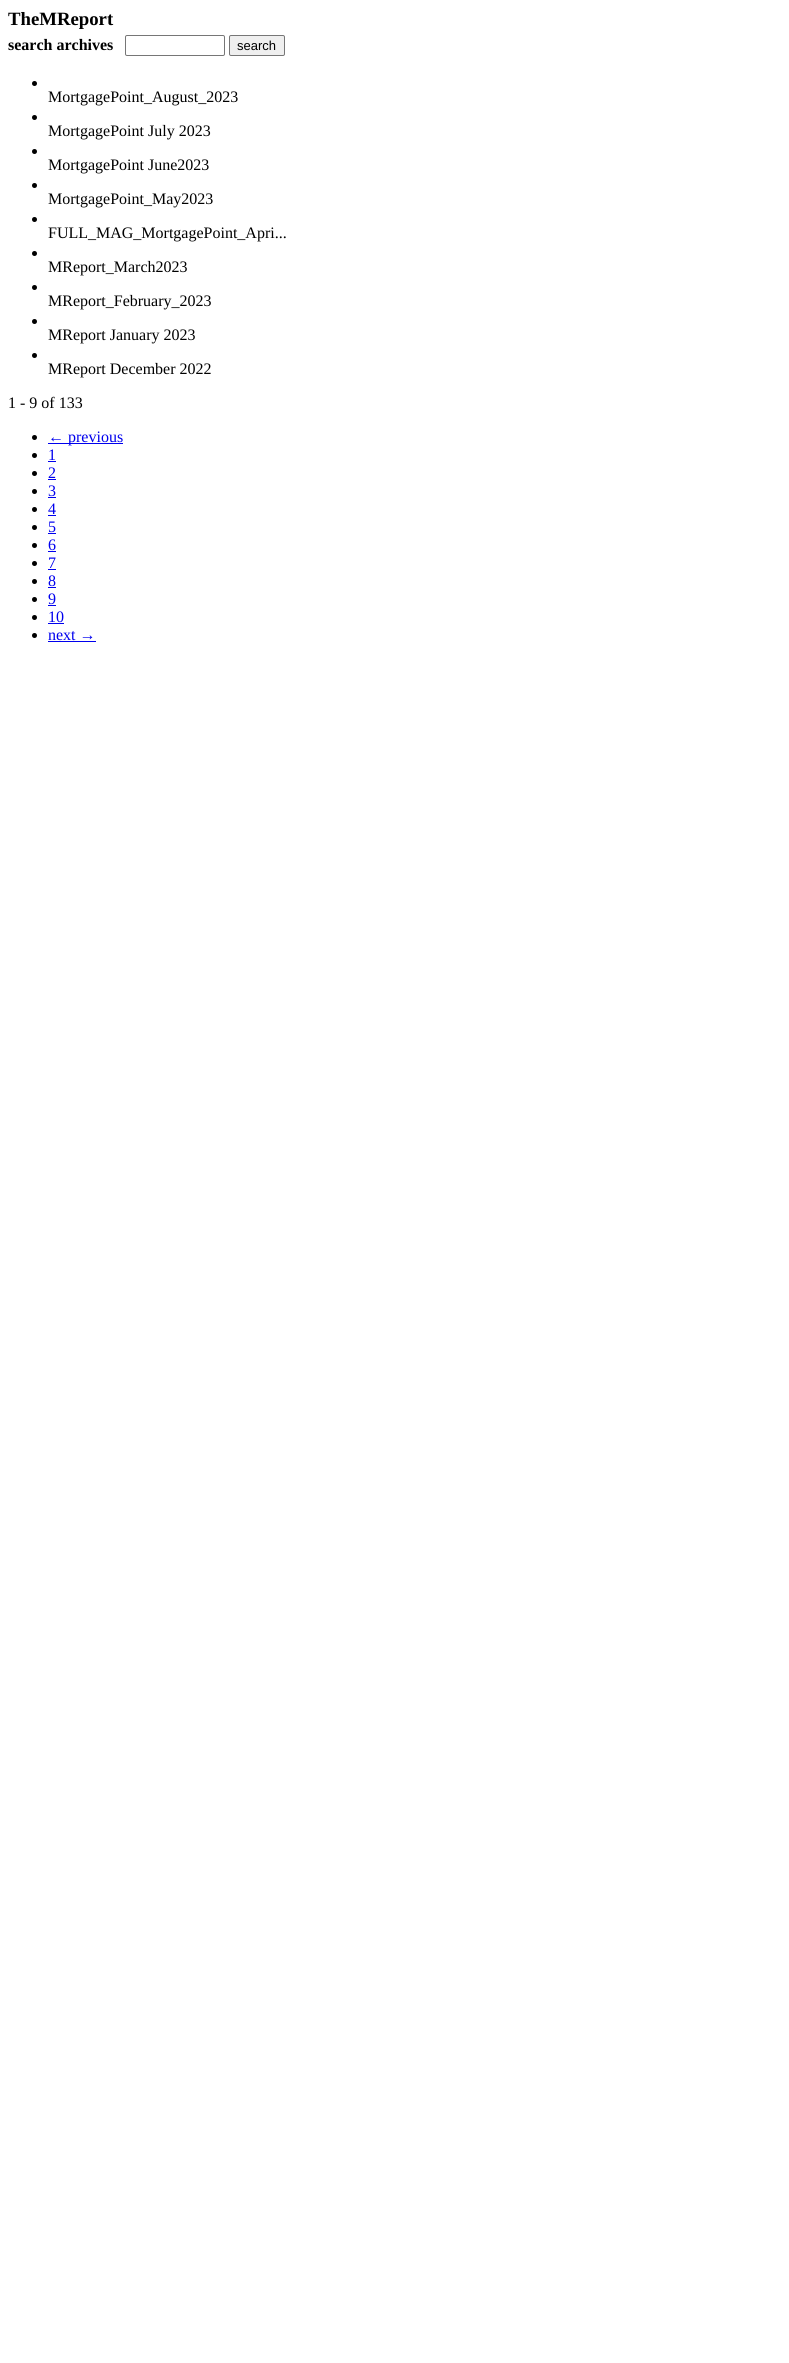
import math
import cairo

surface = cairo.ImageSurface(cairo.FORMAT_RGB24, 789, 2363)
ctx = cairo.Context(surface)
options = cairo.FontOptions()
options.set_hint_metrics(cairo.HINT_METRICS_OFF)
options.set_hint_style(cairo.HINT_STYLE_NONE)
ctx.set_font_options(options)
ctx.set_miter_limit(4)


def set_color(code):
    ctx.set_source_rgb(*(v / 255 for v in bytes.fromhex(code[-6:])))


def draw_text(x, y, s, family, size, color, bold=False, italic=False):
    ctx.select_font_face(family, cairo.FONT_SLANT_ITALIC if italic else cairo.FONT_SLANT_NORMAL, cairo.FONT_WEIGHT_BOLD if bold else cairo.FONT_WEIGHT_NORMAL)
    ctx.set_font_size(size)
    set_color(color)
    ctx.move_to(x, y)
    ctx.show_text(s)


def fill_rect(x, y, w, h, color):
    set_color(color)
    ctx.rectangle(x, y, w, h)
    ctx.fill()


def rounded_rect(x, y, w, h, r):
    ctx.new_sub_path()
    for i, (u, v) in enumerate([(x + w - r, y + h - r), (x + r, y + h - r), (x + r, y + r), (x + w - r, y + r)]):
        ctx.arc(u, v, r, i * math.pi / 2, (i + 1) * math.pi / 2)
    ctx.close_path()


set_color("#ffffff")
ctx.paint()
draw_text(8, 25, "TheMReport", "Liberation Serif", 18.75, "#000000", bold=True)
draw_text(8, 50, "search archives", "Liberation Serif", 16, "#000000", bold=True)
rounded_rect(125.5, 35.5, 99, 20, 1.5)
set_color("#767676")
ctx.set_line_width(1)
ctx.stroke()
set_color("#efefef")
rounded_rect(229.5, 35.5, 55, 20, 1.5)
ctx.fill_preserve()
set_color("#767676")
ctx.stroke()
draw_text(237, 50, "search", "Liberation Sans", 13, "#000000")
ctx.new_path()
ctx.arc(34.5, 83.5, 2.5, 0, 2 * math.pi)
ctx.fill()
draw_text(48, 102, "MortgagePoint_August_2023", "Liberation Serif", 16, "#000000")
ctx.new_path()
ctx.arc(34.5, 117.5, 2.5, 0, 2 * math.pi)
ctx.fill()
draw_text(48, 136, "MortgagePoint July 2023", "Liberation Serif", 16, "#000000")
ctx.new_path()
ctx.arc(34.5, 151.5, 2.5, 0, 2 * math.pi)
ctx.fill()
draw_text(48, 170, "MortgagePoint June2023", "Liberation Serif", 16, "#000000")
ctx.new_path()
ctx.arc(34.5, 185.5, 2.5, 0, 2 * math.pi)
ctx.fill()
draw_text(48, 204, "MortgagePoint_May2023", "Liberation Serif", 16, "#000000")
ctx.new_path()
ctx.arc(34.5, 219.5, 2.5, 0, 2 * math.pi)
ctx.fill()
draw_text(48, 238, "FULL_MAG_MortgagePoint_Apri...", "Liberation Serif", 16, "#000000")
ctx.new_path()
ctx.arc(34.5, 253.5, 2.5, 0, 2 * math.pi)
ctx.fill()
draw_text(48, 272, "MReport_March2023", "Liberation Serif", 16, "#000000")
ctx.new_path()
ctx.arc(34.5, 287.5, 2.5, 0, 2 * math.pi)
ctx.fill()
draw_text(48, 306, "MReport_February_2023", "Liberation Serif", 16, "#000000")
ctx.new_path()
ctx.arc(34.5, 321.5, 2.5, 0, 2 * math.pi)
ctx.fill()
draw_text(48, 340, "MReport January 2023", "Liberation Serif", 16, "#000000")
ctx.new_path()
ctx.arc(34.5, 355.5, 2.5, 0, 2 * math.pi)
ctx.fill()
draw_text(48, 374, "MReport December 2022", "Liberation Serif", 16, "#000000")
draw_text(8, 408, "1 - 9 of 133", "Liberation Serif", 16, "#000000")
ctx.new_path()
ctx.arc(34.5, 437.5, 2.5, 0, 2 * math.pi)
ctx.fill()
fill_rect(48, 443, 75, 1, "#0000ee")
draw_text(48, 442, "← previous", "Liberation Serif", 16, "#0000ee")
set_color("#000000")
ctx.new_path()
ctx.arc(34.5, 455.5, 2.5, 0, 2 * math.pi)
ctx.fill()
draw_text(48, 460, "1", "Liberation Serif", 16, "#0000ee")
fill_rect(48, 461, 8, 1, "#0000ee")
set_color("#000000")
ctx.new_path()
ctx.arc(34.5, 473.5, 2.5, 0, 2 * math.pi)
ctx.fill()
draw_text(48, 478, "2", "Liberation Serif", 16, "#0000ee")
fill_rect(48, 479, 8, 1, "#0000ee")
set_color("#000000")
ctx.new_path()
ctx.arc(34.5, 491.5, 2.5, 0, 2 * math.pi)
ctx.fill()
draw_text(48, 496, "3", "Liberation Serif", 16, "#0000ee")
fill_rect(48, 497, 8, 1, "#0000ee")
set_color("#000000")
ctx.new_path()
ctx.arc(34.5, 509.5, 2.5, 0, 2 * math.pi)
ctx.fill()
draw_text(48, 514, "4", "Liberation Serif", 16, "#0000ee")
fill_rect(48, 515, 8, 1, "#0000ee")
set_color("#000000")
ctx.new_path()
ctx.arc(34.5, 527.5, 2.5, 0, 2 * math.pi)
ctx.fill()
draw_text(48, 532, "5", "Liberation Serif", 16, "#0000ee")
fill_rect(48, 533, 8, 1, "#0000ee")
set_color("#000000")
ctx.new_path()
ctx.arc(34.5, 545.5, 2.5, 0, 2 * math.pi)
ctx.fill()
draw_text(48, 550, "6", "Liberation Serif", 16, "#0000ee")
fill_rect(48, 551, 8, 1, "#0000ee")
set_color("#000000")
ctx.new_path()
ctx.arc(34.5, 563.5, 2.5, 0, 2 * math.pi)
ctx.fill()
draw_text(48, 568, "7", "Liberation Serif", 16, "#0000ee")
fill_rect(48, 569, 8, 1, "#0000ee")
set_color("#000000")
ctx.new_path()
ctx.arc(34.5, 581.5, 2.5, 0, 2 * math.pi)
ctx.fill()
draw_text(48, 586, "8", "Liberation Serif", 16, "#0000ee")
fill_rect(48, 587, 8, 1, "#0000ee")
set_color("#000000")
ctx.new_path()
ctx.arc(34.5, 599.5, 2.5, 0, 2 * math.pi)
ctx.fill()
draw_text(48, 604, "9", "Liberation Serif", 16, "#0000ee")
fill_rect(48, 605, 8, 1, "#0000ee")
set_color("#000000")
ctx.new_path()
ctx.arc(34.5, 617.5, 2.5, 0, 2 * math.pi)
ctx.fill()
draw_text(48, 622, "10", "Liberation Serif", 16, "#0000ee")
fill_rect(48, 623, 16, 1, "#0000ee")
set_color("#000000")
ctx.new_path()
ctx.arc(34.5, 635.5, 2.5, 0, 2 * math.pi)
ctx.fill()
draw_text(48, 640, "next →", "Liberation Serif", 16, "#0000ee")
fill_rect(48, 641, 48, 1, "#0000ee")
surface.write_to_png("output.png")
